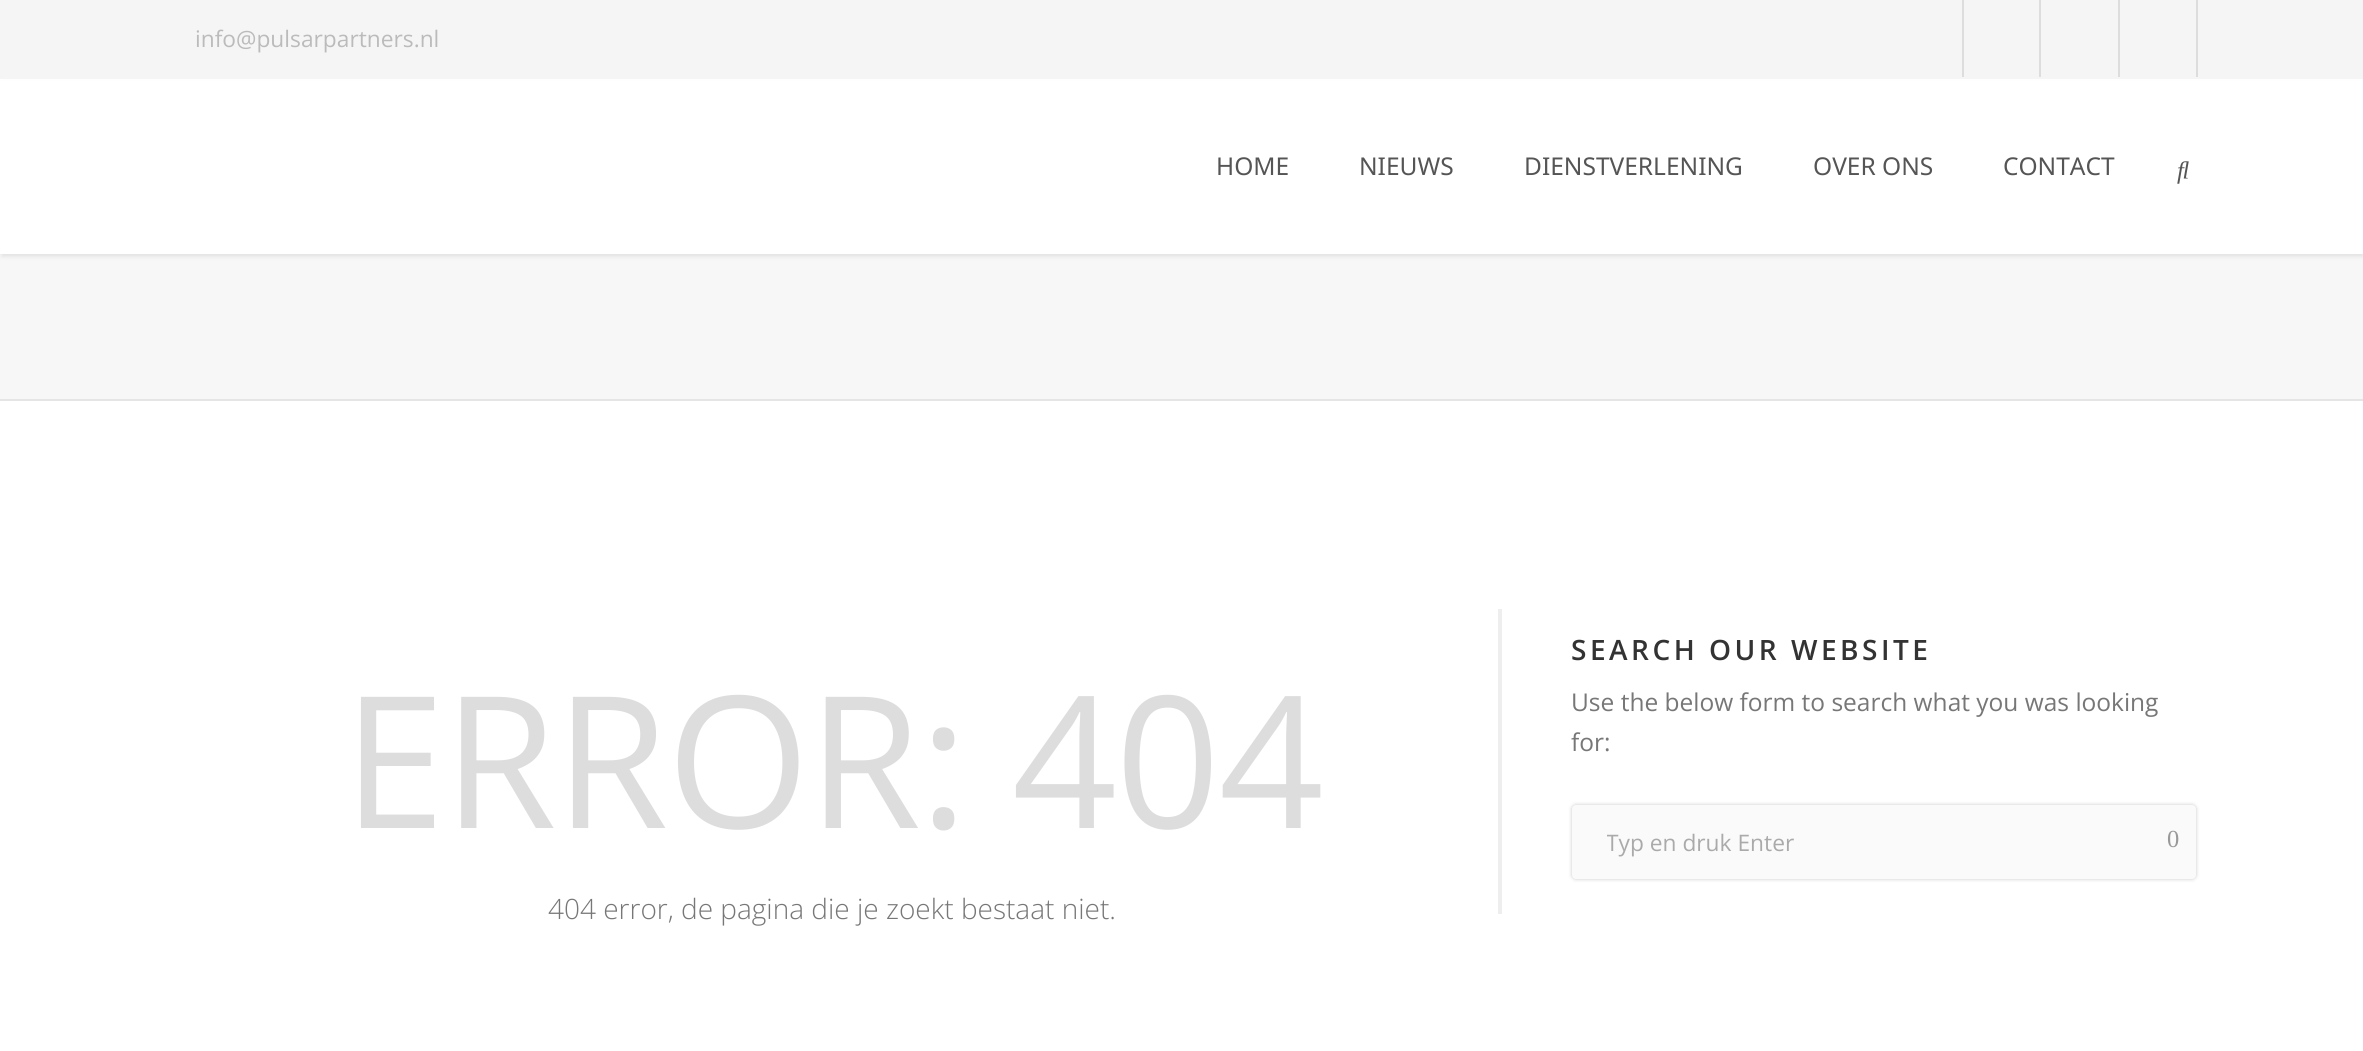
import math
import cairo

surface = cairo.ImageSurface(cairo.FORMAT_RGB24, 2363, 1051)
ctx = cairo.Context(surface)
options = cairo.FontOptions()
options.set_hint_metrics(cairo.HINT_METRICS_OFF)
options.set_hint_style(cairo.HINT_STYLE_NONE)
ctx.set_font_options(options)
ctx.set_miter_limit(4)


def set_color(code):
    ctx.set_source_rgb(*(v / 255 for v in bytes.fromhex(code[-6:])))


def draw_text(x, y, s, family, size, color, bold=False, italic=False):
    ctx.select_font_face(family, cairo.FONT_SLANT_ITALIC if italic else cairo.FONT_SLANT_NORMAL, cairo.FONT_WEIGHT_BOLD if bold else cairo.FONT_WEIGHT_NORMAL)
    ctx.set_font_size(size)
    set_color(color)
    ctx.move_to(x, y)
    ctx.show_text(s)


def draw_spaced(x, y, s, letter, word):
    ctx.move_to(x, y)
    for ch in s:
        ctx.show_text(ch)
        ctx.rel_move_to(letter + word * (ch == ' '), 0)


def fill_rect(x, y, w, h, color):
    set_color(color)
    ctx.rectangle(x, y, w, h)
    ctx.fill()


def rounded_rect(x, y, w, h, r):
    ctx.new_sub_path()
    for i, (u, v) in enumerate([(x + w - r, y + h - r), (x + r, y + h - r), (x + r, y + r), (x + w - r, y + r)]):
        ctx.arc(u, v, r, i * math.pi / 2, (i + 1) * math.pi / 2)
    ctx.close_path()


def draw_shadow(x, y, w, h, r, blur, alpha):
    ctx.push_group_with_content(cairo.CONTENT_ALPHA)
    ctx.set_operator(cairo.OPERATOR_SOURCE)
    for i in range(15, -16, -2):
        e = blur * i / 6
        if min(w, h) + 2 * e > 0:
            ctx.set_source_rgba(0, 0, 0, alpha * math.erfc((i - 1) / 8.5) / 2)
            rounded_rect(x - e, y - e, w + 2 * e, h + 2 * e, max(0, min(r + e + blur * .6, min(w, h) / 2 + e)))
            ctx.fill()
    ctx.mask(ctx.pop_group())


def draw_image(path, x, y, w, h):
    ctx.save()
    ctx.set_source_surface(cairo.ImageSurface.create_from_png(path), x, y)
    ctx.rectangle(x, y, w, h)
    ctx.fill()
    ctx.restore()


set_color("#ffffff")
ctx.paint()
fill_rect(0, 0, 2363, 79, "#f5f5f5")
draw_text(195, 47, "info@pulsarpartners.nl", "Open Sans", 22.75, "#bbbbbb")
fill_rect(2039, 0, 2, 77, "#dddddd")
fill_rect(1962, 0, 2, 77, "#dddddd")
fill_rect(2118, 0, 2, 77, "#dddddd")
fill_rect(2196, 0, 2, 77, "#dddddd")
fill_rect(0, 254, 2363, 145, "#f7f7f7")
set_color("#000000")
draw_shadow(2, 84, 2361, 172, 0, 2.5, 0.1)
fill_rect(0, 81, 2363, 173, "#ffffff")
draw_text(1216, 175, "HOME", "Noto Sans", 24.5, "#555555")
draw_text(1359, 175, "NIEUWS", "Noto Sans", 24.5, "#555555")
draw_text(1524, 175, "DIENSTVERLENING", "Noto Sans", 24.5, "#555555")
draw_text(1813, 175, "OVER ONS", "Noto Sans", 24.5, "#555555")
draw_text(2003, 175, "CONTACT", "Noto Sans", 24.5, "#555555")
draw_image("assets/img1.png", 2177, 161, 12, 23)
fill_rect(0, 399, 2363, 2, "#e5e5e5")
ctx.select_font_face("Open Sans")
ctx.set_font_size(183.75)
set_color("#dddddd")
draw_spaced(343, 828, "ERROR: 404", -1.75, 0)
draw_text(548, 919, "404 error, de pagina die je zoekt bestaat niet.", "Open Sans Light", 28, "#777777")
fill_rect(1498, 609, 4, 305, "#eeeeee")
ctx.select_font_face("Open Sans SemiBold")
set_color("#333333")
draw_spaced(1571, 660, "SEARCH OUR WEBSITE", 3.5, 0)
draw_text(1571, 711, "Use the below form to search what you was looking", "Open Sans", 24.5, "#777777")
draw_text(1571, 751, "for:", "Open Sans", 24.5, "#777777")
set_color("#000000")
draw_shadow(1572, 805, 624, 74, 4, 2, 0.22)
set_color("#fafafa")
rounded_rect(1572, 805, 624, 74, 4)
ctx.fill()
ctx.save()
ctx.rectangle(1607, 826, 554, 32)
ctx.clip()
draw_text(1606, 851, "Typ en druk Enter", "Open Sans", 22.75, "#aaaaaa")
ctx.restore()
draw_text(2167, 847, "0", "Liberation Serif", 24.5, "#999999")
surface.write_to_png("output.png")
